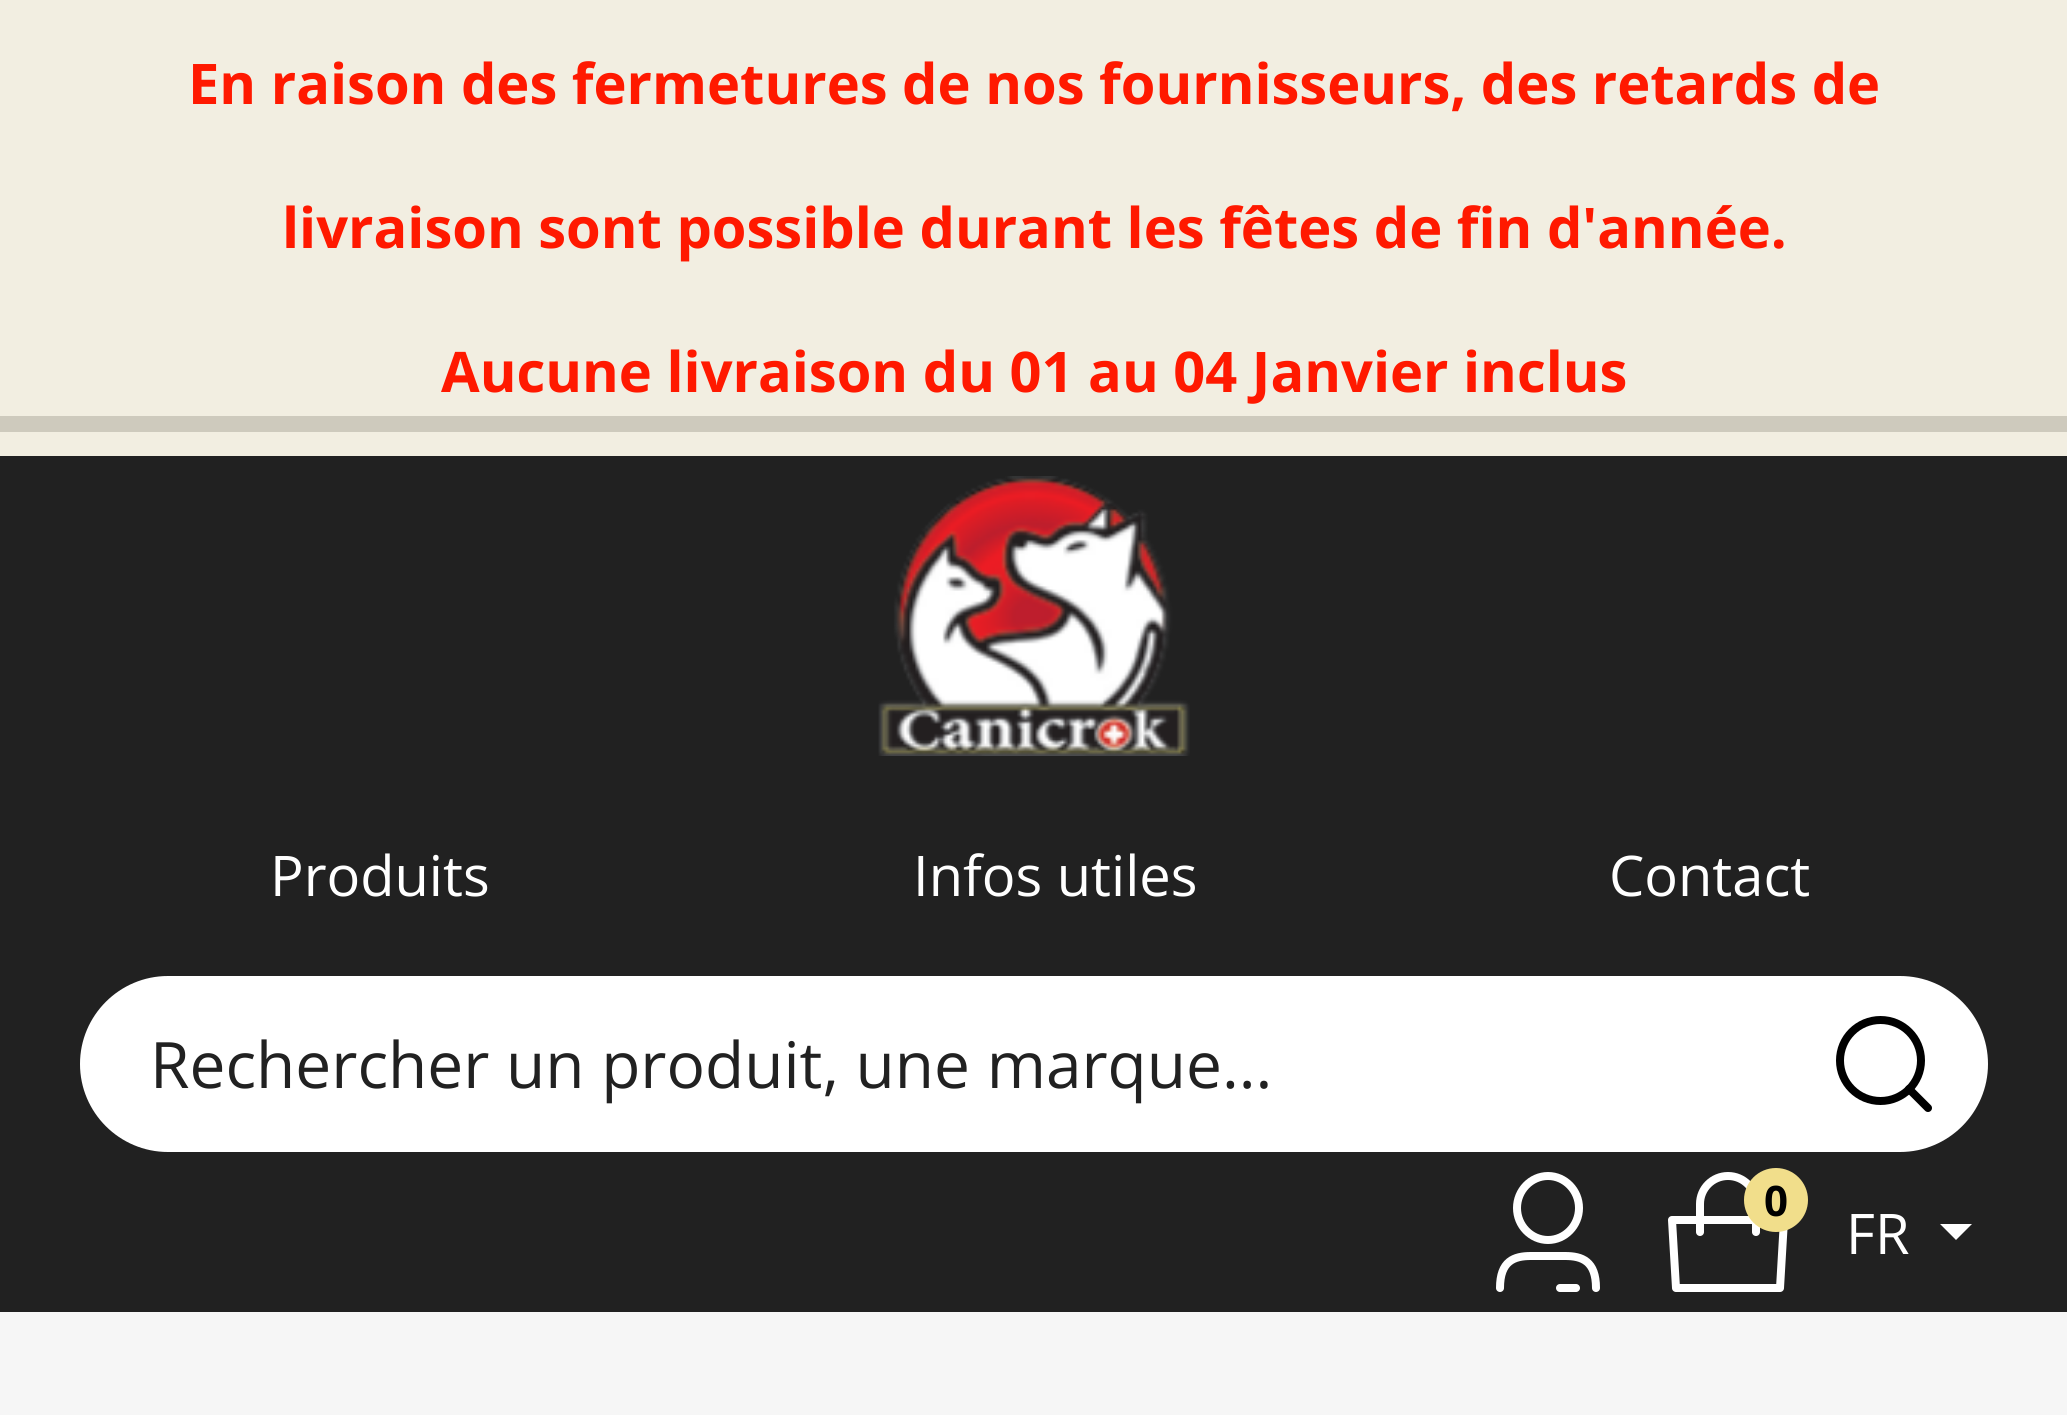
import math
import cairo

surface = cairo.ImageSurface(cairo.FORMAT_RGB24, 2067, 1415)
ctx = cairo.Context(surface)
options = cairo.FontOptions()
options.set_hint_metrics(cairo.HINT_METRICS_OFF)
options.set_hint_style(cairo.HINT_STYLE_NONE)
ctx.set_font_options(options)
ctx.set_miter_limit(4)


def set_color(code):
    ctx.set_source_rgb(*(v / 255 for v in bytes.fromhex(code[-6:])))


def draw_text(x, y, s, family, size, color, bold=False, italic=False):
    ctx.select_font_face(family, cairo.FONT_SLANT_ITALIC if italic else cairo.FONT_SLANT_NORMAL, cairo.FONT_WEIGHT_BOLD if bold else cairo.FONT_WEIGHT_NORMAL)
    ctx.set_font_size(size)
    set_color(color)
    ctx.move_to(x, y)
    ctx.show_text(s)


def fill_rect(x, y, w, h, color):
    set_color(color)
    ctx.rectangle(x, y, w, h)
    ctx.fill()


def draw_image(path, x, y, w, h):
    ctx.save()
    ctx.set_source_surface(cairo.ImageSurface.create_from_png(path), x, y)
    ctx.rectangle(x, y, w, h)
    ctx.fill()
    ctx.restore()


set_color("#f6f6f6")
ctx.paint()
fill_rect(0, 0, 2067, 456, "#f2eee1")
draw_text(188, 104, "En raison des fermetures de nos fournisseurs, des retards de", "Open Sans", 56, "#ff1900", bold=True)
draw_text(282, 248, "livraison sont possible durant les fêtes de fin d'année.", "Open Sans", 56, "#ff1900", bold=True)
draw_text(441, 392, "Aucune livraison du 01 au 04 Janvier inclus", "Open Sans", 56, "#ff1900", bold=True)
fill_rect(0, 416, 2067, 16, "#cecabd")
fill_rect(0, 456, 2067, 856, "#212121")
draw_image("assets/img1.png", 878, 476, 312, 280)
draw_text(270, 896, "Produits", "Open Sans", 56, "#ffffff")
draw_text(913, 896, "Infos utiles", "Open Sans", 56, "#ffffff")
draw_text(1609, 896, "Contact", "Open Sans", 56, "#ffffff")
ctx.new_path()
ctx.move_to(1780, 976)
ctx.line_to(1900, 976)
ctx.curve_to(1948.5, 976, 1988, 1015.5, 1988, 1064)
ctx.curve_to(1988, 1112.5, 1948.5, 1152, 1900, 1152)
ctx.line_to(1780, 1152)
ctx.close_path()
ctx.fill()
ctx.new_path()
ctx.move_to(168, 976)
ctx.line_to(1784, 976)
ctx.line_to(1784, 1152)
ctx.line_to(168, 1152)
ctx.curve_to(119.5, 1152, 80, 1112.5, 80, 1064)
ctx.curve_to(80, 1015.5, 119.5, 976, 168, 976)
ctx.close_path()
ctx.fill()
draw_text(150, 1088, "Rechercher un produit, une marque...", "Open Sans", 64, "#212121")
ctx.new_path()
ctx.arc(1880.5, 1060.5, 40.5, 0, 2 * math.pi)
set_color("#000000")
ctx.set_line_width(8)
ctx.stroke()
ctx.new_path()
ctx.move_to(1909, 1089)
ctx.line_to(1928, 1108)
ctx.set_line_cap(cairo.LINE_CAP_ROUND)
ctx.set_line_join(cairo.LINE_JOIN_ROUND)
ctx.stroke()
ctx.new_path()
ctx.move_to(1548, 1176)
ctx.curve_to(1565, 1176, 1579, 1190.5, 1579, 1208)
ctx.curve_to(1579, 1225.5, 1565, 1240, 1548, 1240)
ctx.curve_to(1531, 1240, 1517, 1225.5, 1517, 1208)
ctx.curve_to(1517, 1190.5, 1531, 1176, 1548, 1176)
ctx.close_path()
set_color("#ffffff")
ctx.set_line_cap(cairo.LINE_CAP_BUTT)
ctx.set_line_join(cairo.LINE_JOIN_MITER)
ctx.stroke()
ctx.new_path()
ctx.move_to(1596, 1288)
ctx.curve_to(1596, 1261, 1582, 1256, 1565, 1256)
ctx.line_to(1531, 1256)
ctx.curve_to(1514, 1256, 1500, 1261, 1500, 1288)
ctx.set_line_cap(cairo.LINE_CAP_ROUND)
ctx.stroke()
ctx.new_path()
ctx.move_to(1576, 1288)
ctx.line_to(1560, 1288)
ctx.stroke()
ctx.new_path()
ctx.move_to(1700, 1232)
ctx.line_to(1700, 1204)
ctx.curve_to(1700, 1188.5, 1712.5, 1176, 1728, 1176)
ctx.curve_to(1743.5, 1176, 1756, 1188.5, 1756, 1204)
ctx.line_to(1756, 1232)
ctx.set_line_join(cairo.LINE_JOIN_ROUND)
ctx.stroke()
ctx.new_path()
ctx.move_to(1784, 1220)
ctx.line_to(1672, 1220)
ctx.line_to(1676, 1288)
ctx.line_to(1780, 1288)
ctx.close_path()
ctx.stroke()
set_color("#f1de8b")
ctx.arc(1776, 1200, 32, 0, 2 * math.pi)
ctx.fill()
draw_text(1764, 1216, "0", "Open Sans", 42, "#000000", bold=True)
draw_text(1846, 1254, "FR", "Open Sans", 56, "#ffffff")
ctx.new_path()
ctx.move_to(1940, 1224)
ctx.line_to(1972, 1224)
ctx.line_to(1956, 1240)
ctx.close_path()
ctx.fill()
surface.write_to_png("output.png")
